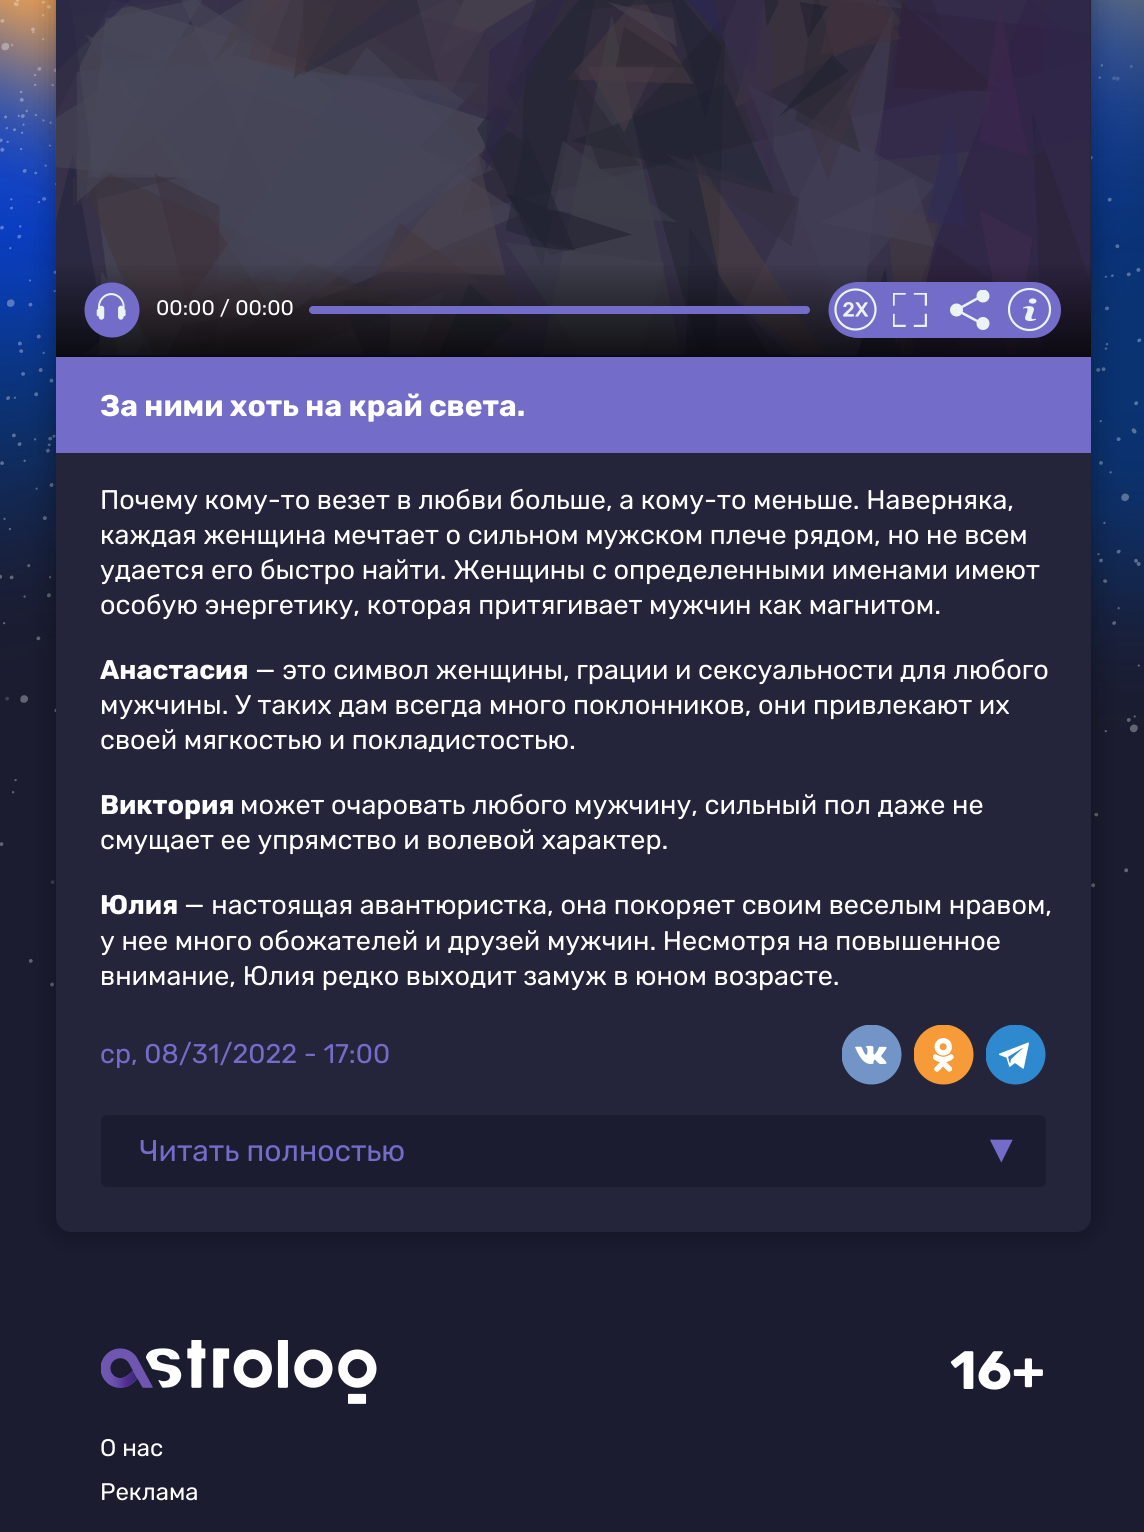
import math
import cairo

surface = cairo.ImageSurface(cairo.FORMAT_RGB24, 1144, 1532)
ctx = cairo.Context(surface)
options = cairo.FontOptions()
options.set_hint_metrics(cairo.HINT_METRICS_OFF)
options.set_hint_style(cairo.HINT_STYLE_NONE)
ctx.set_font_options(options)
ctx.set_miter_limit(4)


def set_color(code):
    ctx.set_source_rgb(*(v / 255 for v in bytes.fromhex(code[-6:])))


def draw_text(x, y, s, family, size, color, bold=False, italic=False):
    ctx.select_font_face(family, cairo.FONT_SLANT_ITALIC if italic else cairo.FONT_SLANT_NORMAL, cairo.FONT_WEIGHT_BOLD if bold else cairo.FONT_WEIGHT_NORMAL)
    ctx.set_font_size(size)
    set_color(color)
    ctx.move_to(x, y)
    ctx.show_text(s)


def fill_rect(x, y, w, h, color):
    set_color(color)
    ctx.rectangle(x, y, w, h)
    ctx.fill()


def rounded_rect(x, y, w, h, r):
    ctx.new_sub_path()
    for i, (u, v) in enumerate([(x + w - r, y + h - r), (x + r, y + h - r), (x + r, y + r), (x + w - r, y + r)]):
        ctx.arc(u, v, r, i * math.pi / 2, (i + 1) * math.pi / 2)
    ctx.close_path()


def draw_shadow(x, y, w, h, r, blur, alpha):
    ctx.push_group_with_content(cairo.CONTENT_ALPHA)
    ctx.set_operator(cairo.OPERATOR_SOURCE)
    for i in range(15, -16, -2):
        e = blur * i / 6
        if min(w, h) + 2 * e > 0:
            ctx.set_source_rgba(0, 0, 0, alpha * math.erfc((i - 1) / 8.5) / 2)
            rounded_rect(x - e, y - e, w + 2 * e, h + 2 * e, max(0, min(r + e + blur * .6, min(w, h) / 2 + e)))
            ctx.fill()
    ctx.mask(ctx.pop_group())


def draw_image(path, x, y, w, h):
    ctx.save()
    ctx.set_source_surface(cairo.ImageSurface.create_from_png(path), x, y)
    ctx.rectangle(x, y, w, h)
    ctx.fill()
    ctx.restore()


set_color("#1b1c30")
ctx.paint()
draw_image("assets/img1.png", 0, 0, 1144, 987)
set_color("#000000")
draw_shadow(56, -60, 1035, 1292, 15, 15, 0.37)
set_color("#24243a")
rounded_rect(56, -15, 1035, 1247, 15)
ctx.fill()
draw_image("assets/img2.png", 55, 0, 1036, 355)
gradient = cairo.LinearGradient(573, 261, 573, 357)
gradient.add_color_stop_rgba(0, 0, 0, 0, 0)
gradient.add_color_stop_rgba(1, 0, 0, 0, 0.73)
ctx.set_source(gradient)
ctx.rectangle(56, 265, 1035, 92)
ctx.fill()
set_color("#746cc9")
rounded_rect(831, 282, 230, 56, 28)
ctx.fill()
draw_image("assets/img3.png", 893, 293, 34, 34)
set_color("#edf2f2")
ctx.arc(956.5, 310, 6.5, 0, 2 * math.pi)
ctx.fill()
ctx.save()
ctx.rectangle(950, 290, 40, 40)
ctx.clip()
ctx.arc(983, 296, 6.5, 0, 2 * math.pi)
ctx.fill()
ctx.restore()
ctx.arc(983, 323.5, 6.5, 0, 2 * math.pi)
ctx.fill()
ctx.new_path()
ctx.move_to(985.5, 294)
ctx.line_to(956.5, 310)
ctx.line_to(985.5, 325.5)
ctx.set_line_width(2.5)
ctx.stroke()
draw_image("assets/img4.png", 1008, 288, 44, 44)
draw_image("assets/img5.png", 84, 282, 56, 56)
ctx.save()
ctx.rectangle(156, 299, 138, 21)
ctx.clip()
draw_text(156, 315, "00:00 / 00:00", "Rubik", 21, "#ffffff")
ctx.restore()
set_color("#746cc9")
rounded_rect(309, 306, 501, 8, 4)
ctx.fill()
draw_image("assets/img6.png", 828, 282, 49, 56)
fill_rect(56, 357, 1035, 96, "#746cc9")
draw_text(100, 416, "За ними хоть на край света.", "Rubik", 30, "#ffffff", bold=True)
draw_text(100, 509, "Почему кому-то везет в любви больше, а кому-то меньше. Наверняка,", "Rubik", 27, "#ffffff")
draw_text(100, 544, "каждая женщина мечтает о сильном мужском плече рядом, но не всем", "Rubik", 27, "#ffffff")
draw_text(100, 579, "удается его быстро найти. Женщины с определенными именами имеют", "Rubik", 27, "#ffffff")
draw_text(100, 614, "особую энергетику, которая притягивает мужчин как магнитом.", "Rubik", 27, "#ffffff")
draw_text(100, 679, "Анастасия", "Rubik", 27, "#ffffff", bold=True)
draw_text(255, 679, "— это символ женщины, грации и сексуальности для любого", "Rubik", 27, "#ffffff")
draw_text(100, 714, "мужчины. У таких дам всегда много поклонников, они привлекают их", "Rubik", 27, "#ffffff")
draw_text(100, 749, "своей мягкостью и покладистостью.", "Rubik", 27, "#ffffff")
draw_text(100, 814, "Виктория", "Rubik", 27, "#ffffff", bold=True)
draw_text(240, 814, "может очаровать любого мужчину, сильный пол даже не", "Rubik", 27, "#ffffff")
draw_text(100, 849, "смущает ее упрямство и волевой характер.", "Rubik", 27, "#ffffff")
draw_text(100, 914, "Юлия", "Rubik", 27, "#ffffff", bold=True)
draw_text(184, 914, "— настоящая авантюристка, она покоряет своим веселым нравом,", "Rubik", 27, "#ffffff")
draw_text(100, 950, "у нее много обожателей и друзей мужчин. Несмотря на повышенное", "Rubik", 27, "#ffffff")
draw_text(100, 985, "внимание, Юлия редко выходит замуж в юном возрасте.", "Rubik", 27, "#ffffff")
draw_text(100, 1063, "ср, 08/31/2022 - 17:00", "Rubik", 27, "#746cc9")
draw_image("assets/img7.png", 842, 1025, 60, 60)
draw_image("assets/img8.png", 914, 1025, 60, 60)
draw_image("assets/img9.png", 986, 1025, 60, 60)
set_color("#1b1c30")
rounded_rect(101, 1115, 945, 72, 6)
ctx.fill()
draw_text(139, 1161, "Читать полностью", "Rubik", 30, "#746cc9")
draw_text(982, 1162, "▼", "Liberation Sans", 39, "#746cc9")
draw_image("assets/img10.png", 101, 1340, 276, 64)
draw_text(950, 1389, "16+", "Rubik", 54, "#ffffff", bold=True)
draw_text(100, 1456, "О нас", "Rubik", 24, "#ffffff")
draw_text(100, 1500, "Реклама", "Rubik", 24, "#ffffff")
surface.write_to_png("output.png")
